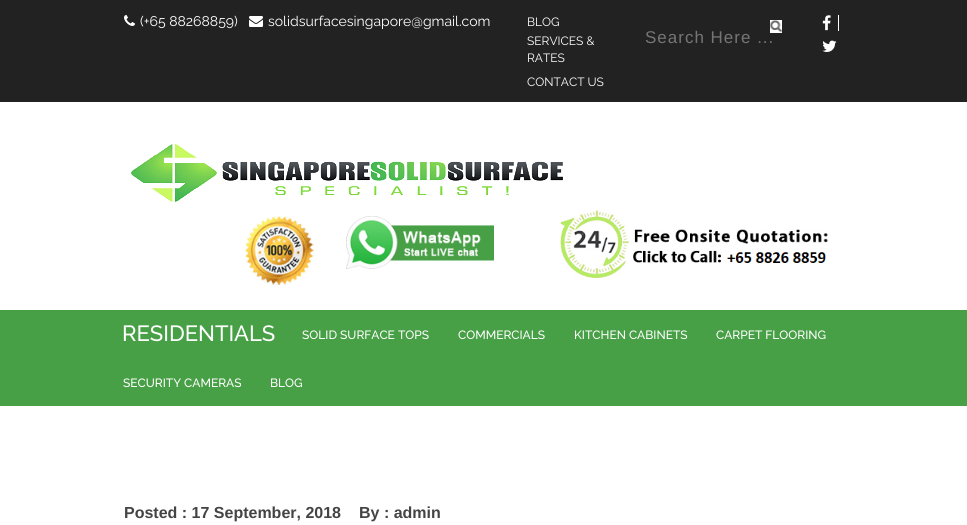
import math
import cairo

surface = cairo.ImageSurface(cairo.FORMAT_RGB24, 967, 525)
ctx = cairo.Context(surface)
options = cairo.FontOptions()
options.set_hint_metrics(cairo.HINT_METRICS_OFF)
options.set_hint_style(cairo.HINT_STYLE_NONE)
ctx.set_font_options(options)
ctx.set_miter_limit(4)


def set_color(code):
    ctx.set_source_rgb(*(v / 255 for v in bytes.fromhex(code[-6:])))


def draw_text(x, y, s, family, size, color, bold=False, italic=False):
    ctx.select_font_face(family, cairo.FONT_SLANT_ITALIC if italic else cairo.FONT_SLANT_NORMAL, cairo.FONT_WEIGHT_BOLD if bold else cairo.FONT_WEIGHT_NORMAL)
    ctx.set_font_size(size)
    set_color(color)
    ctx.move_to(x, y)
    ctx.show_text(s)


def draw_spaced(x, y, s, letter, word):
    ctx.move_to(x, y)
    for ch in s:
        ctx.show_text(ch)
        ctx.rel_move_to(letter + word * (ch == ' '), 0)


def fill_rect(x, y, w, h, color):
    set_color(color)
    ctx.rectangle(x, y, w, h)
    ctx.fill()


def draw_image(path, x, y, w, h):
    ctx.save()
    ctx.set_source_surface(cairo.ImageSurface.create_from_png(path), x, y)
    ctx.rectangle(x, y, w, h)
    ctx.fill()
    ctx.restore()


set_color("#ffffff")
ctx.paint()
fill_rect(0, 0, 967, 102, "#222222")
draw_image("assets/img1.png", 124, 15, 11, 11)
draw_text(140, 26, "(+65 88268859)", "Raleway", 14, "#ffffff")
draw_image("assets/img2.png", 249, 16, 14, 11)
draw_text(268, 26, "solidsurfacesingapore@gmail.com", "Raleway", 14, "#ffffff")
draw_text(527, 26, "BLOG", "Raleway", 12, "#ffffff")
draw_text(527, 45, "SERVICES &", "Raleway", 12, "#ffffff")
draw_text(527, 62, "RATES", "Raleway", 12, "#ffffff")
draw_text(527, 86, "CONTACT US", "Raleway", 12, "#ffffff")
ctx.select_font_face("Liberation Sans")
ctx.set_font_size(17)
set_color("#757575")
draw_spaced(645, 43, "Search Here ...", 1, 0)
draw_image("assets/img3.png", 770, 20, 12, 13)
fill_rect(838, 15, 1, 16, "#ffffff")
draw_image("assets/img4.png", 822, 15, 9, 16)
draw_image("assets/img5.png", 822, 40, 15, 12)
draw_image("assets/img6.png", 131, 144, 432, 58)
draw_image("assets/img7.png", 245, 216, 69, 69)
draw_image("assets/img8.png", 346, 216, 148, 53)
draw_image("assets/img9.png", 560, 210, 268, 68)
fill_rect(0, 310, 967, 96, "#47a045")
draw_text(122, 341, "RESIDENTIALS", "Raleway Medium", 22, "#ffffff")
draw_text(302, 339, "SOLID SURFACE TOPS", "Raleway Medium", 12, "#ffffff")
draw_text(458, 339, "COMMERCIALS", "Raleway Medium", 12, "#ffffff")
draw_text(574, 339, "KITCHEN CABINETS", "Raleway Medium", 12, "#ffffff")
draw_text(716, 339, "CARPET FLOORING", "Raleway Medium", 12, "#ffffff")
draw_text(123, 387, "SECURITY CAMERAS", "Raleway Medium", 12, "#ffffff")
draw_text(270, 387, "BLOG", "Raleway Medium", 12, "#ffffff")
draw_text(124, 518, "Posted : 17 September, 2018", "Liberation Sans", 16, "#444444", bold=True)
draw_text(359, 518, "By : admin", "Liberation Sans", 16, "#444444", bold=True)
surface.write_to_png("output.png")
